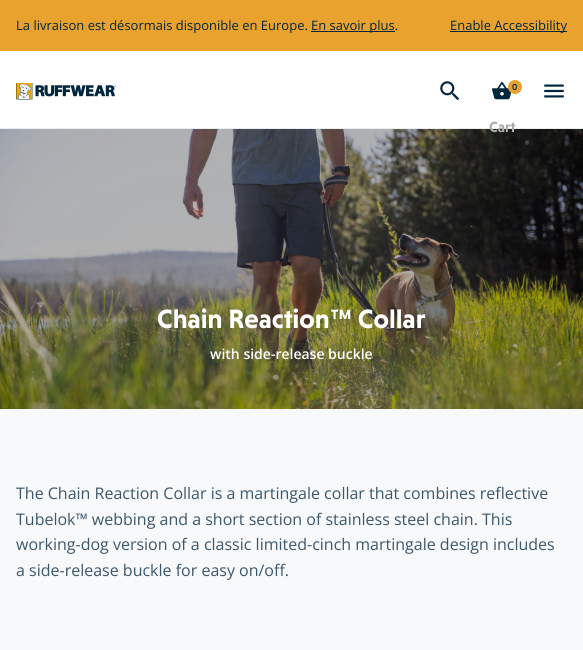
import math
import cairo

surface = cairo.ImageSurface(cairo.FORMAT_RGB24, 583, 650)
ctx = cairo.Context(surface)
options = cairo.FontOptions()
options.set_hint_metrics(cairo.HINT_METRICS_OFF)
options.set_hint_style(cairo.HINT_STYLE_NONE)
ctx.set_font_options(options)
ctx.set_miter_limit(4)


def set_color(code):
    ctx.set_source_rgb(*(v / 255 for v in bytes.fromhex(code[-6:])))


def draw_text(x, y, s, family, size, color, bold=False, italic=False):
    ctx.select_font_face(family, cairo.FONT_SLANT_ITALIC if italic else cairo.FONT_SLANT_NORMAL, cairo.FONT_WEIGHT_BOLD if bold else cairo.FONT_WEIGHT_NORMAL)
    ctx.set_font_size(size)
    set_color(color)
    ctx.move_to(x, y)
    ctx.show_text(s)


def fill_rect(x, y, w, h, color):
    set_color(color)
    ctx.rectangle(x, y, w, h)
    ctx.fill()


def draw_image(path, x, y, w, h):
    ctx.save()
    ctx.set_source_surface(cairo.ImageSurface.create_from_png(path), x, y)
    ctx.rectangle(x, y, w, h)
    ctx.fill()
    ctx.restore()


set_color("#f7f9fa")
ctx.paint()
fill_rect(0, 0, 583, 51, "#eaa22e")
draw_text(16, 30, "La livraison est désormais disponible en Europe.", "Open Sans", 13, "#00263e")
fill_rect(311, 31, 84, 1, "#00263e")
draw_text(311, 30, "En savoir plus.", "Open Sans", 13, "#00263e")
fill_rect(450, 31, 117, 1, "#00263e")
draw_text(450, 30, "Enable Accessibility", "Open Sans", 13, "#00263e")
fill_rect(0, 51, 583, 77, "#ffffff")
fill_rect(0, 128, 583, 1, "#ebeef0")
draw_image("assets/img1.png", 16, 83, 100, 17)
draw_image("assets/img2.png", 440, 81, 20, 20)
draw_image("assets/img3.png", 491, 81, 21, 19)
set_color("#eaa22e")
ctx.arc(515, 87, 7, 0, 2 * math.pi)
ctx.fill()
draw_text(512, 90, "0", "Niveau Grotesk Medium", 9, "#00263e")
draw_image("assets/img5.png", 0, 129, 583, 280)
draw_text(489, 132, "Cart", "Niveau Grotesk", 15, "#aaabaa", bold=True)
draw_image("assets/img4.png", 544, 84, 20, 14)
draw_text(157, 328, "Chain Reaction™ Collar", "Niveau Grotesk", 27, "#ffffff", bold=True)
draw_text(210, 359, "with side-release buckle", "Open Sans SemiBold", 14, "#ffffff")
draw_text(16, 499, "The Chain Reaction Collar is a martingale collar that combines reflective", "Open Sans", 16, "#3d576b")
draw_text(16, 525, "Tubelok™ webbing and a short section of stainless steel chain. This", "Open Sans", 16, "#3d576b")
draw_text(16, 550, "working-dog version of a classic limited-cinch martingale design includes", "Open Sans", 16, "#3d576b")
draw_text(16, 576, "a side-release buckle for easy on/off.", "Open Sans", 16, "#3d576b")
surface.write_to_png("output.png")
